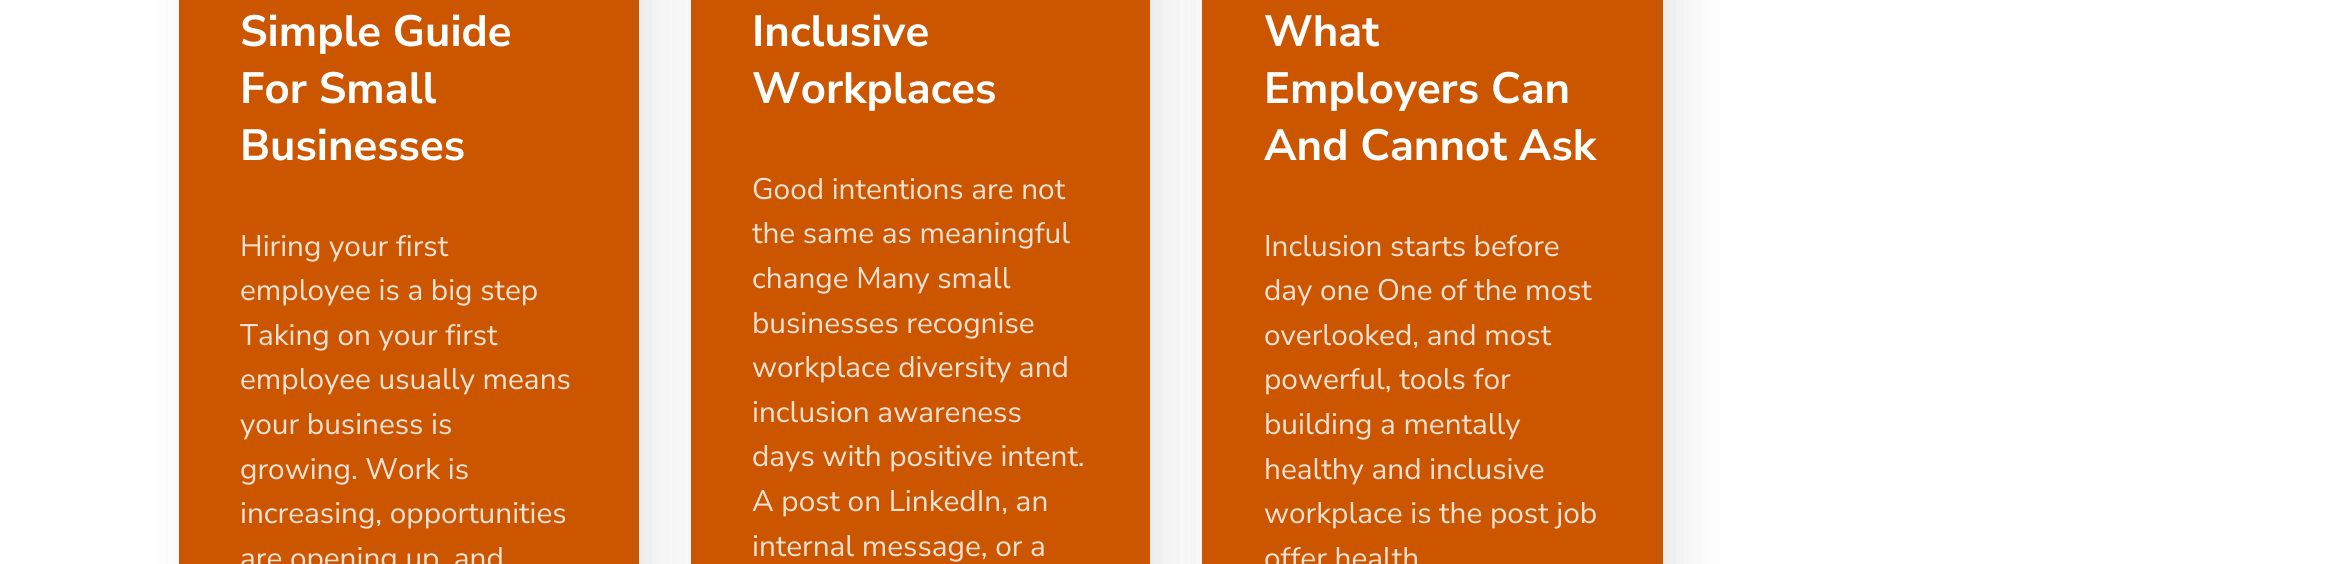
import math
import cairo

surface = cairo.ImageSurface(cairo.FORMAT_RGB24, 2352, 564)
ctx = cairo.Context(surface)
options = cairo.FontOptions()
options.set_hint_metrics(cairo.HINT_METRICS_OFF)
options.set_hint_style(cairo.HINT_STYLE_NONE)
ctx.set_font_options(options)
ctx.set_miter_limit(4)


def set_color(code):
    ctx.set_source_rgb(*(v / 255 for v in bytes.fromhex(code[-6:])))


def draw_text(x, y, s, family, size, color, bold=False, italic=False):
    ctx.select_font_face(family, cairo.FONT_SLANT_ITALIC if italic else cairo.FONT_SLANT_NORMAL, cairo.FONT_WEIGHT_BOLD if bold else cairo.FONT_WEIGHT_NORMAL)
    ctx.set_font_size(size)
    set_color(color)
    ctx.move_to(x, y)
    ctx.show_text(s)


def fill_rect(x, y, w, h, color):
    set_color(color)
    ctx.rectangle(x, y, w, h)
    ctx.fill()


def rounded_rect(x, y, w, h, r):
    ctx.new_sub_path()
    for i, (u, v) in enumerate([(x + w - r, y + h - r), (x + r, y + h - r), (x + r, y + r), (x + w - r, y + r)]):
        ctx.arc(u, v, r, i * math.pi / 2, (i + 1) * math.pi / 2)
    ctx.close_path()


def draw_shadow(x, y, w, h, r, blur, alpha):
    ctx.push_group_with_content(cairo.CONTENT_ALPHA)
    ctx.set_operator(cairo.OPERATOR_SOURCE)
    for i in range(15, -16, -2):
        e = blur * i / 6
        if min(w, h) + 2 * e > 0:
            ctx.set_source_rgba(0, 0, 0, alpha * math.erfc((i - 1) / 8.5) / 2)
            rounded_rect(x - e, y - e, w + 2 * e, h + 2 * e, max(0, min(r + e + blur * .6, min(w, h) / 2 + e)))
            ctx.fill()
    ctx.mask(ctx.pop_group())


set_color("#ffffff")
ctx.paint()
set_color("#000000")
draw_shadow(196, -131, 460, 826, 53, 26, 0.1)
fill_rect(179, 0, 460, 564, "#cc5600")
draw_text(240, 46, "Simple Guide", "Nunito Sans", 43.75, "#ffffff", bold=True)
draw_text(240, 103, "For Small", "Nunito Sans", 43.75, "#ffffff", bold=True)
draw_text(240, 160, "Businesses", "Nunito Sans", 43.75, "#ffffff", bold=True)
draw_text(240, 256, "Hiring your first", "Nunito Sans", 29.75, "#f6e2d4")
draw_text(240, 300, "employee is a big step", "Nunito Sans", 29.75, "#f6e2d4")
draw_text(240, 345, "Taking on your first", "Nunito Sans", 29.75, "#f6e2d4")
draw_text(240, 389, "employee usually means", "Nunito Sans", 29.75, "#f6e2d4")
draw_text(240, 434, "your business is", "Nunito Sans", 29.75, "#f6e2d4")
draw_text(240, 479, "growing. Work is", "Nunito Sans", 29.75, "#f6e2d4")
draw_text(240, 523, "increasing, opportunities", "Nunito Sans", 29.75, "#f6e2d4")
draw_text(240, 568, "are opening up, and", "Nunito Sans", 29.75, "#f6e2d4")
set_color("#000000")
draw_shadow(709, -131, 458, 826, 53, 26, 0.1)
fill_rect(691, 0, 459, 564, "#cc5600")
draw_text(752, 46, "Inclusive", "Nunito Sans", 43.75, "#ffffff", bold=True)
draw_text(752, 103, "Workplaces", "Nunito Sans", 43.75, "#ffffff", bold=True)
draw_text(752, 199, "Good intentions are not", "Nunito Sans", 29.75, "#f6e2d4")
draw_text(752, 243, "the same as meaningful", "Nunito Sans", 29.75, "#f6e2d4")
draw_text(752, 288, "change Many small", "Nunito Sans", 29.75, "#f6e2d4")
draw_text(752, 333, "businesses recognise", "Nunito Sans", 29.75, "#f6e2d4")
draw_text(752, 377, "workplace diversity and", "Nunito Sans", 29.75, "#f6e2d4")
draw_text(752, 422, "inclusion awareness", "Nunito Sans", 29.75, "#f6e2d4")
draw_text(752, 466, "days with positive intent.", "Nunito Sans", 29.75, "#f6e2d4")
draw_text(752, 511, "A post on LinkedIn, an", "Nunito Sans", 29.75, "#f6e2d4")
draw_text(752, 556, "internal message, or a", "Nunito Sans", 29.75, "#f6e2d4")
set_color("#000000")
draw_shadow(1220, -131, 460, 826, 53, 26, 0.1)
fill_rect(1202, 0, 461, 564, "#cc5600")
draw_text(1264, 46, "What", "Nunito Sans", 43.75, "#ffffff", bold=True)
draw_text(1264, 103, "Employers Can", "Nunito Sans", 43.75, "#ffffff", bold=True)
draw_text(1264, 160, "And Cannot Ask", "Nunito Sans", 43.75, "#ffffff", bold=True)
draw_text(1264, 256, "Inclusion starts before", "Nunito Sans", 29.75, "#f6e2d4")
draw_text(1264, 300, "day one One of the most", "Nunito Sans", 29.75, "#f6e2d4")
draw_text(1264, 345, "overlooked, and most", "Nunito Sans", 29.75, "#f6e2d4")
draw_text(1264, 389, "powerful, tools for", "Nunito Sans", 29.75, "#f6e2d4")
draw_text(1264, 434, "building a mentally", "Nunito Sans", 29.75, "#f6e2d4")
draw_text(1264, 479, "healthy and inclusive", "Nunito Sans", 29.75, "#f6e2d4")
draw_text(1264, 523, "workplace is the post job", "Nunito Sans", 29.75, "#f6e2d4")
draw_text(1264, 568, "offer health", "Nunito Sans", 29.75, "#f6e2d4")
surface.write_to_png("output.png")
